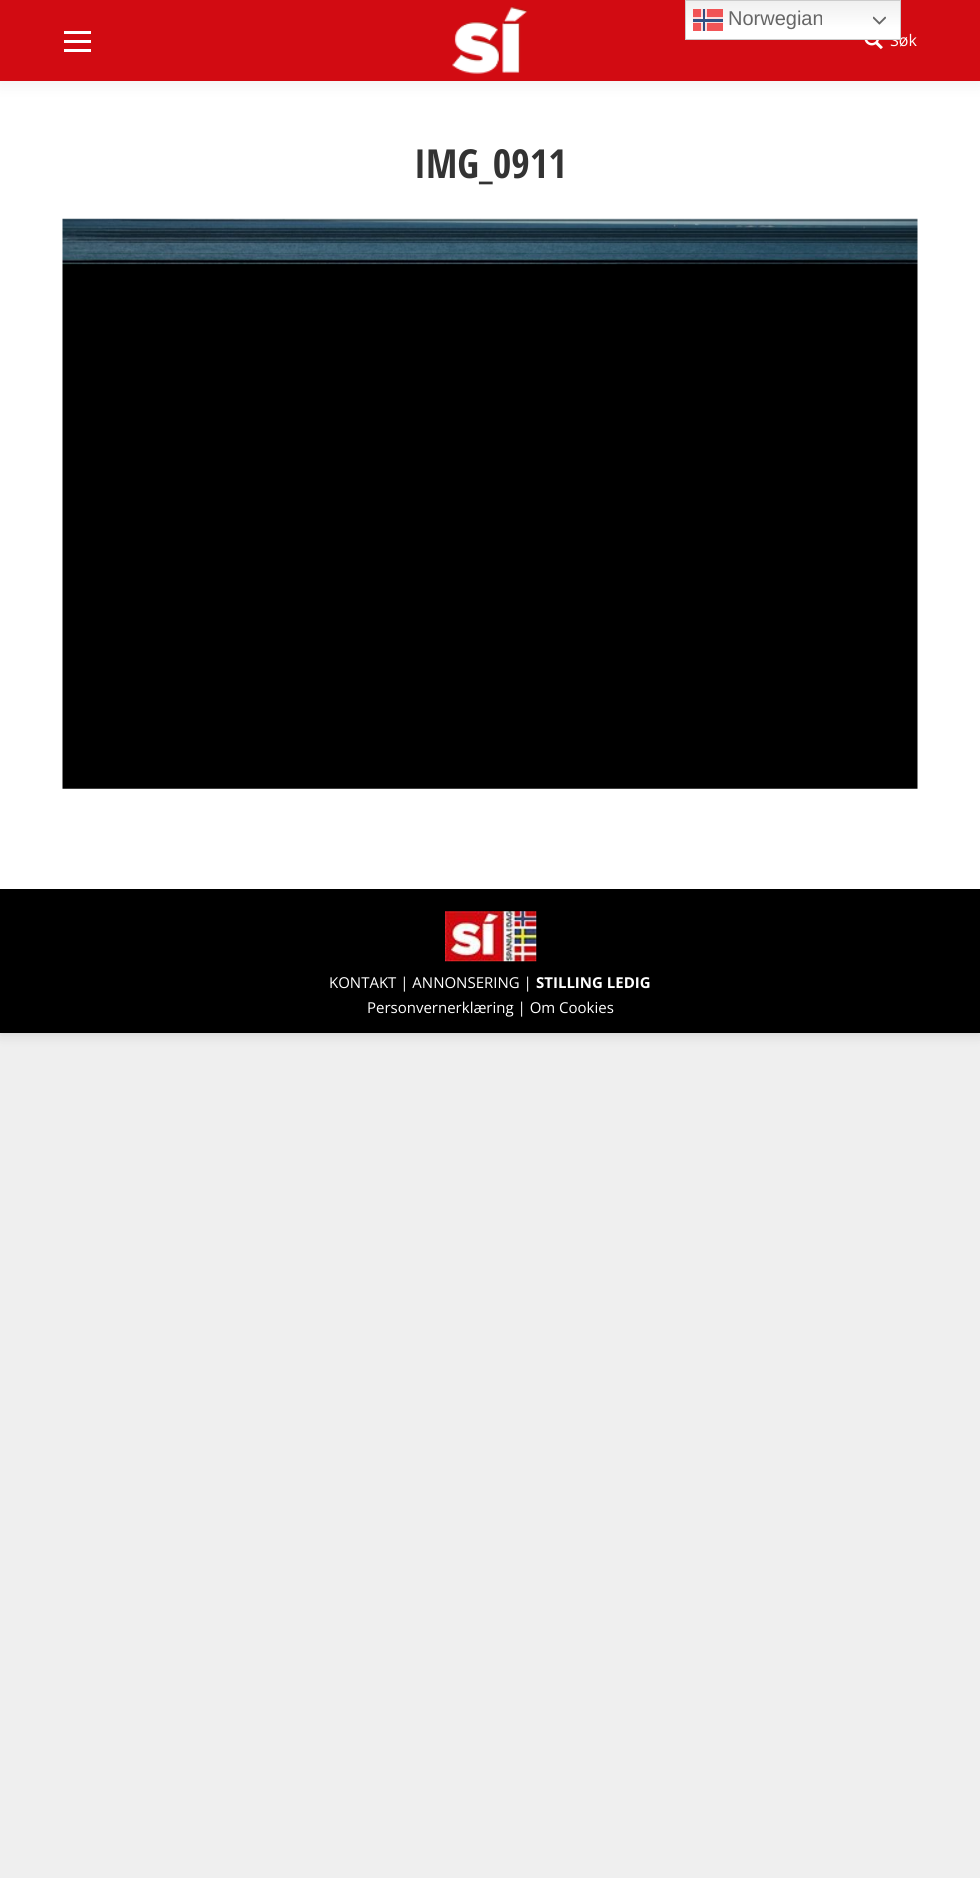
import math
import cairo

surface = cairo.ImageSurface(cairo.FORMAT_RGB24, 980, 1878)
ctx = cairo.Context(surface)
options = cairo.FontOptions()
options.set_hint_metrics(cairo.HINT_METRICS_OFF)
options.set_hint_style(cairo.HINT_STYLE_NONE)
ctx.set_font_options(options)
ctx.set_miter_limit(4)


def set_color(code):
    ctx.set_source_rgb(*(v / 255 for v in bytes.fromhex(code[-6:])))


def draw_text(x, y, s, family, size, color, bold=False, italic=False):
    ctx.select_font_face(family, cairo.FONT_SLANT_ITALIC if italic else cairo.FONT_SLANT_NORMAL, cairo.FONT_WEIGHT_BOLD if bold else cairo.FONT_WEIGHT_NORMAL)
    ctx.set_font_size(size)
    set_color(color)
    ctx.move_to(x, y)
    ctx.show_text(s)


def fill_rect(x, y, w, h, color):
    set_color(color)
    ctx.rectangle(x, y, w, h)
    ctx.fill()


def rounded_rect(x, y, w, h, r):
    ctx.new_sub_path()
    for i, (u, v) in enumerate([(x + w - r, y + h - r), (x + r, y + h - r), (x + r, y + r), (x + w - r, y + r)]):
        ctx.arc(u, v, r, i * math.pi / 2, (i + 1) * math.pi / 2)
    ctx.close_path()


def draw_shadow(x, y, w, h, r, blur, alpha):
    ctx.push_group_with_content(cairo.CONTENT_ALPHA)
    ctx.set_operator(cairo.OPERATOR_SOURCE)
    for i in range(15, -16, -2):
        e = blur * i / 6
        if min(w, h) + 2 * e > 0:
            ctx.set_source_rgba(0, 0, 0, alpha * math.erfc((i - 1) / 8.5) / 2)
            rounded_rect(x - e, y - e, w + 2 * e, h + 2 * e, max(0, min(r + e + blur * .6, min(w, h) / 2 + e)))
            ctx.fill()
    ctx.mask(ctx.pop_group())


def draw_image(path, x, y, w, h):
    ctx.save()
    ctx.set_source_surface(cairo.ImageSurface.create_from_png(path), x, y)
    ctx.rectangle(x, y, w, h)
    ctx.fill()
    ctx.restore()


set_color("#efefef")
ctx.paint()
set_color("#000000")
draw_shadow(0, 0, 980, 1033, 0, 7.5, 0.15)
fill_rect(0, 81, 980, 808, "#ffffff")
set_color("#000000")
draw_shadow(-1, -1, 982, 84, 0, 9.5, 0.07)
fill_rect(0, 0, 980, 81, "#d20b12")
draw_text(890, 46, "Søk", "Open Sans", 16, "#ffffff")
gradient = cairo.LinearGradient(793, 0, 793, 40)
gradient.add_color_stop_rgba(0, 0.937, 0.937, 0.937, 1)
gradient.add_color_stop_rgba(0.7, 1, 1, 1, 1)
ctx.set_source(gradient)
ctx.rectangle(686, 1, 214, 38)
ctx.fill()
gradient = cairo.LinearGradient(793, 0, 793, 40)
gradient.add_color_stop_rgba(0, 0.937, 0.322, 0.329, 1)
gradient.add_color_stop_rgba(0.7, 0.949, 0.333, 0.341, 1)
ctx.set_source(gradient)
ctx.rectangle(693, 9, 30, 22)
ctx.fill()
gradient = cairo.LinearGradient(793, 0, 793, 40)
gradient.add_color_stop_rgba(0, 0.988, 0.863, 0.867, 1)
gradient.add_color_stop_rgba(0.7, 0.988, 0.867, 0.867, 1)
ctx.set_source(gradient)
ctx.rectangle(693, 17, 30, 6)
ctx.fill()
ctx.rectangle(685.5, 0.5, 215, 39)
set_color("#cccccc")
ctx.set_line_width(1)
ctx.stroke()
fill_rect(701, 9, 6, 22, "#fcdddd")
fill_rect(703, 9, 2, 22, "#324c7f")
draw_text(728, 25, "Norwegian", "Liberation Sans", 20, "#666666")
draw_image("assets/img1.png", 873, 16, 13, 9)
fill_rect(701, 17, 6, 6, "#fef8f8")
fill_rect(703, 17, 2, 6, "#335285")
fill_rect(693, 19, 30, 3, "#325285")
fill_rect(64, 40, 27, 3, "#ffffff")
fill_rect(64, 31, 27, 3, "#ffffff")
fill_rect(64, 49, 27, 3, "#ffffff")
draw_image("assets/img2.png", 452, 6, 76, 68)
draw_image("assets/img3.png", 864, 40, 19, 10)
draw_text(414, 178, "IMG_0911", "Open Sans Condensed", 40, "#333333", bold=True)
draw_image("assets/img4.png", 62, 218, 856, 571)
fill_rect(0, 889, 980, 144, "#000000")
draw_image("assets/img5.png", 445, 911, 92, 51)
draw_text(329, 988, "KONTAKT | ANNONSERING |", "Open Sans", 15, "#ffffff")
draw_text(536, 988, "STILLING LEDIG", "Open Sans", 15, "#ffffff", bold=True)
draw_text(367, 1013, "Personvernerklæring | Om Cookies", "Open Sans", 15, "#ffffff")
surface.write_to_png("output.png")
